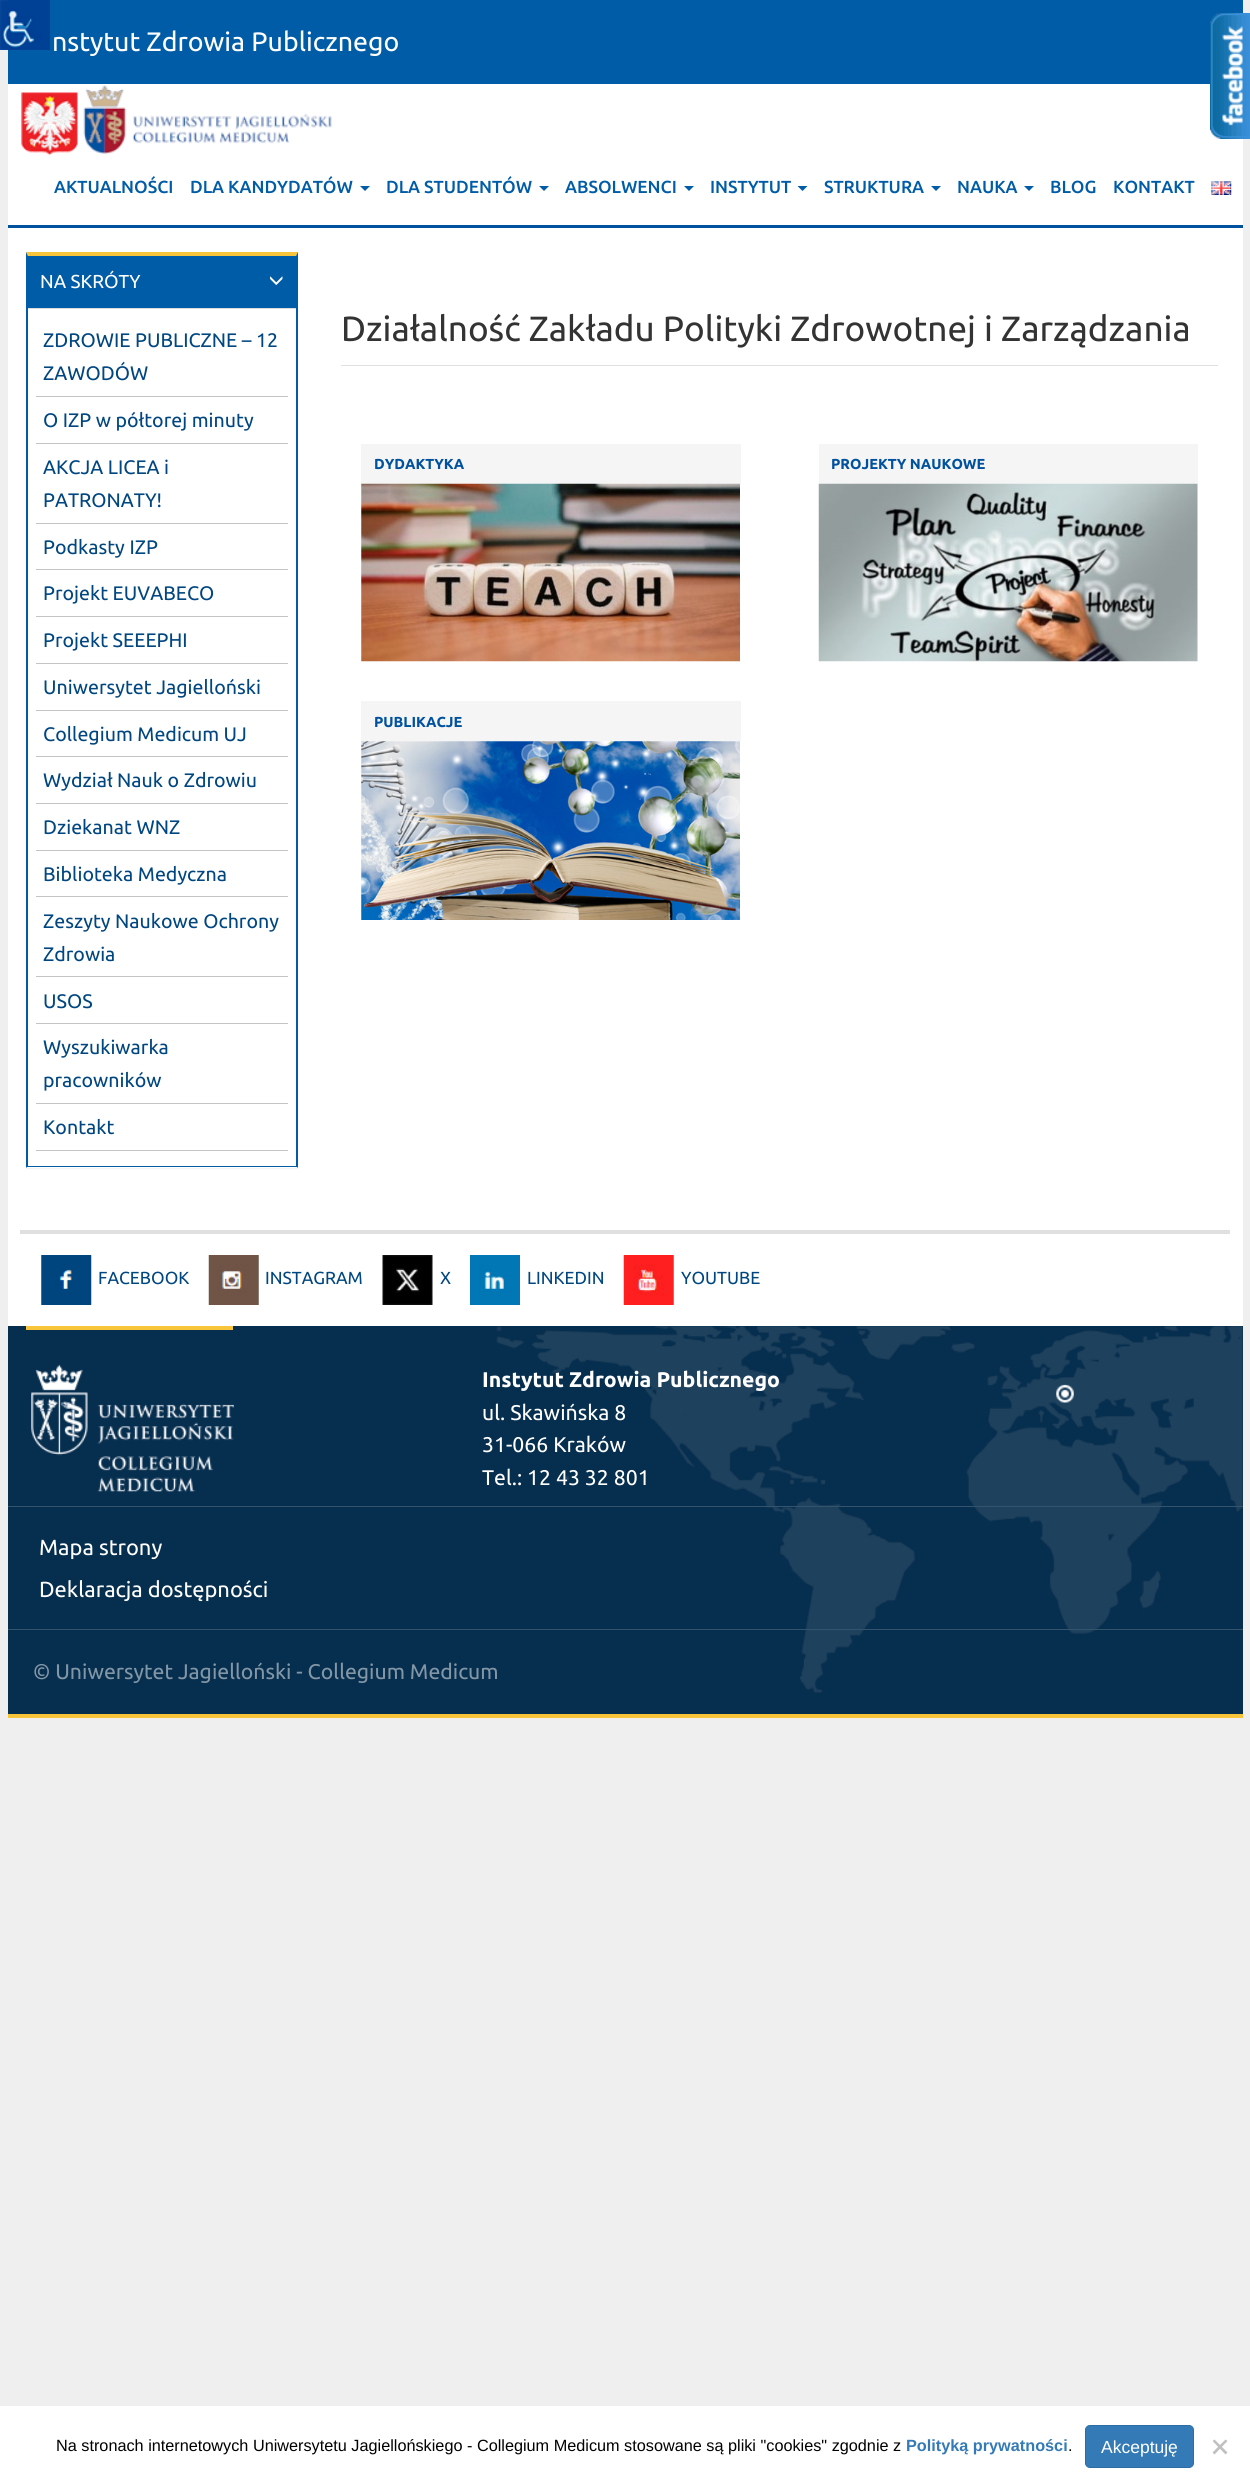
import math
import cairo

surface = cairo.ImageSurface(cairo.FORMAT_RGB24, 1250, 2486)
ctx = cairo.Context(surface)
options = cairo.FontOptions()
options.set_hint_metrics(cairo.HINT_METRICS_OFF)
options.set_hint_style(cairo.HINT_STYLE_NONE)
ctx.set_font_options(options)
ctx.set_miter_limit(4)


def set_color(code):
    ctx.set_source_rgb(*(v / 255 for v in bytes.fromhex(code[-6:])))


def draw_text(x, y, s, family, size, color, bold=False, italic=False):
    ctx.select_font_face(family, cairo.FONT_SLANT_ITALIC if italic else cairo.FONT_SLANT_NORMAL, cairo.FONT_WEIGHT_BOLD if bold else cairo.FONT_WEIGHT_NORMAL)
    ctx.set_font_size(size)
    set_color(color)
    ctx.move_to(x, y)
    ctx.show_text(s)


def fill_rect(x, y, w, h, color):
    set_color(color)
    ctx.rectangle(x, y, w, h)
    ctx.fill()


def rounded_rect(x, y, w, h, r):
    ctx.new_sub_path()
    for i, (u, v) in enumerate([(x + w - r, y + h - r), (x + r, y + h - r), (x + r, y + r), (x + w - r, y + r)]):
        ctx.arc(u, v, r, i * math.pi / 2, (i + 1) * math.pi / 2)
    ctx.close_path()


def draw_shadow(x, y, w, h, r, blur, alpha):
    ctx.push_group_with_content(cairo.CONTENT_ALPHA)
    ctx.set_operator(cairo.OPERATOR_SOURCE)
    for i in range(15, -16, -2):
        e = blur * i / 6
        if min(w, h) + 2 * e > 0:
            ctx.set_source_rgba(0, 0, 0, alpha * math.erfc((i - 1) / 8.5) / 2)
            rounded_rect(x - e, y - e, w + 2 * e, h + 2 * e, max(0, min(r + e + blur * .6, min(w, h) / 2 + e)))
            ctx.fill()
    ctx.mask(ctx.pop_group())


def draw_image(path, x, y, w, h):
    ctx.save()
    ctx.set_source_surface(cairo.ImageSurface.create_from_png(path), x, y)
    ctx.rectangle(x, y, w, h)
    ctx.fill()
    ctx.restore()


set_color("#efefef")
ctx.paint()
fill_rect(8, 0, 1235, 84, "#005ca7")
draw_image("assets/img1.png", 0, 0, 50, 50)
draw_text(52, 51, "nstytut Zdrowia Publicznego", "Ubuntu", 26.75, "#ffffff")
fill_rect(8, 84, 1235, 141, "#ffffff")
draw_image("assets/img2.png", 21, 92, 57, 63)
draw_image("assets/img3.png", 83, 85, 250, 69)
draw_text(54, 193, "AKTUALNOŚCI", "Ubuntu Medium", 17.5, "#005ca7")
draw_text(190, 193, "DLA KANDYDATÓW", "Ubuntu Medium", 17.5, "#005ca7")
ctx.new_path()
ctx.move_to(360, 186)
ctx.line_to(370, 186)
ctx.line_to(365, 191)
ctx.close_path()
ctx.fill()
draw_text(386, 193, "DLA STUDENTÓW", "Ubuntu Medium", 17.5, "#005ca7")
ctx.new_path()
ctx.move_to(539, 186)
ctx.line_to(549, 186)
ctx.line_to(544, 191)
ctx.close_path()
ctx.fill()
draw_text(565, 193, "ABSOLWENCI", "Ubuntu Medium", 17.5, "#005ca7")
ctx.new_path()
ctx.move_to(684, 186)
ctx.line_to(694, 186)
ctx.line_to(689, 191)
ctx.close_path()
ctx.fill()
draw_text(710, 193, "INSTYTUT", "Ubuntu Medium", 17.5, "#005ca7")
ctx.new_path()
ctx.move_to(797.5, 186)
ctx.line_to(807.5, 186)
ctx.line_to(802.5, 191)
ctx.close_path()
ctx.fill()
draw_text(824, 193, "STRUKTURA", "Ubuntu Medium", 17.5, "#005ca7")
ctx.new_path()
ctx.move_to(931, 186)
ctx.line_to(941, 186)
ctx.line_to(936, 191)
ctx.close_path()
ctx.fill()
draw_text(957, 193, "NAUKA", "Ubuntu Medium", 17.5, "#005ca7")
ctx.new_path()
ctx.move_to(1024, 186)
ctx.line_to(1034, 186)
ctx.line_to(1029, 191)
ctx.close_path()
ctx.fill()
draw_text(1050, 193, "BLOG", "Ubuntu Medium", 17.5, "#005ca7")
draw_text(1113, 193, "KONTAKT", "Ubuntu Medium", 17.5, "#005ca7")
draw_image("assets/img4.png", 1211, 181, 21, 14)
fill_rect(8, 225, 1235, 3, "#00519e")
fill_rect(8, 228, 1235, 1098, "#ffffff")
ctx.save()
ctx.set_fill_rule(cairo.FILL_RULE_EVEN_ODD)
ctx.new_path()
ctx.move_to(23, 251)
ctx.line_to(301, 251)
ctx.line_to(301, 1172)
ctx.line_to(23, 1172)
ctx.close_path()
ctx.move_to(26, 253)
ctx.line_to(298, 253)
ctx.line_to(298, 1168)
ctx.line_to(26, 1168)
ctx.close_path()
ctx.clip()
set_color("#000000")
draw_shadow(26, 254, 272, 915, 0, 0.5, 0.05)
ctx.restore()
set_color("#f8c53a")
ctx.new_path()
ctx.move_to(26, 252)
ctx.line_to(298, 252)
ctx.line_to(296, 256)
ctx.line_to(28, 256)
ctx.close_path()
ctx.fill()
set_color("#005ca7")
ctx.new_path()
ctx.move_to(298, 252)
ctx.line_to(298, 1168)
ctx.line_to(296, 1166)
ctx.line_to(296, 256)
ctx.close_path()
ctx.fill()
fill_rect(26, 1166, 272, 1, "#005ca7")
ctx.new_path()
ctx.move_to(26, 1168)
ctx.line_to(26, 252)
ctx.line_to(28, 256)
ctx.line_to(28, 1166)
ctx.close_path()
ctx.fill()
fill_rect(28, 256, 268, 52, "#005ca7")
draw_text(40, 288, "NA SKRÓTY", "Ubuntu", 18.75, "#ffffff")
draw_image("assets/img5.png", 270, 276, 13, 9)
fill_rect(28, 308, 268, 1, "#dddddd")
fill_rect(36, 396, 252, 1, "#c4c4c4")
draw_text(43, 347, "ZDROWIE PUBLICZNE – 12", "Ubuntu", 19.6, "#004680")
draw_text(43, 380, "ZAWODÓW", "Ubuntu", 19.6, "#004680")
fill_rect(36, 443, 252, 1, "#c4c4c4")
draw_text(43, 427, "O IZP w półtorej minuty", "Ubuntu", 19.6, "#004680")
fill_rect(36, 523, 252, 1, "#c4c4c4")
draw_text(43, 474, "AKCJA LICEA i", "Ubuntu", 19.6, "#004680")
draw_text(43, 507, "PATRONATY!", "Ubuntu", 19.6, "#004680")
fill_rect(36, 569, 252, 1, "#c4c4c4")
draw_text(43, 554, "Podkasty IZP", "Ubuntu", 19.6, "#004680")
fill_rect(36, 616, 252, 1, "#c4c4c4")
draw_text(43, 600, "Projekt EUVABECO", "Ubuntu", 19.6, "#004680")
fill_rect(36, 663, 252, 1, "#c4c4c4")
draw_text(43, 647, "Projekt SEEEPHI", "Ubuntu", 19.6, "#004680")
fill_rect(36, 710, 252, 1, "#c4c4c4")
draw_text(43, 694, "Uniwersytet Jagielloński", "Ubuntu", 19.6, "#004680")
fill_rect(36, 756, 252, 1, "#c4c4c4")
draw_text(43, 741, "Collegium Medicum UJ", "Ubuntu", 19.6, "#004680")
fill_rect(36, 803, 252, 1, "#c4c4c4")
draw_text(43, 787, "Wydział Nauk o Zdrowiu", "Ubuntu", 19.6, "#004680")
fill_rect(36, 850, 252, 1, "#c4c4c4")
draw_text(43, 834, "Dziekanat WNZ", "Ubuntu", 19.6, "#004680")
fill_rect(36, 896, 252, 1, "#c4c4c4")
draw_text(43, 881, "Biblioteka Medyczna", "Ubuntu", 19.6, "#004680")
fill_rect(36, 976, 252, 1, "#c4c4c4")
draw_text(43, 928, "Zeszyty Naukowe Ochrony", "Ubuntu", 19.6, "#004680")
draw_text(43, 961, "Zdrowia", "Ubuntu", 19.6, "#004680")
fill_rect(36, 1023, 252, 1, "#c4c4c4")
draw_text(43, 1008, "USOS", "Ubuntu", 19.6, "#004680")
fill_rect(36, 1103, 252, 1, "#c4c4c4")
draw_text(43, 1054, "Wyszukiwarka", "Ubuntu", 19.6, "#004680")
draw_text(43, 1087, "pracowników", "Ubuntu", 19.6, "#004680")
fill_rect(36, 1150, 252, 1, "#c4c4c4")
draw_text(43, 1134, "Kontakt", "Ubuntu", 19.6, "#004680")
draw_text(341, 341, "Działalność Zakładu Polityki Zdrowotnej i Zarządzania", "Ubuntu", 35.1, "#333333")
fill_rect(341, 365, 877, 1, "#e0e0e0")
fill_rect(361, 444, 380, 40, "#f5f5f5")
draw_text(374, 469, "DYDAKTYKA", "Ubuntu", 14.5, "#00519e", bold=True)
draw_image("assets/img6.png", 361, 483, 379, 179)
fill_rect(819, 444, 379, 40, "#f5f5f5")
draw_text(831, 469, "PROJEKTY NAUKOWE", "Ubuntu", 14.5, "#00519e", bold=True)
draw_image("assets/img7.png", 818, 483, 380, 179)
fill_rect(361, 701, 380, 40, "#f5f5f5")
draw_text(374, 727, "PUBLIKACJE", "Ubuntu", 14.5, "#00519e", bold=True)
draw_image("assets/img8.png", 361, 741, 379, 179)
fill_rect(20, 1230, 1210, 4, "#e0e0e0")
draw_image("assets/img9.png", 41, 1255, 51, 50)
draw_text(98, 1284, "FACEBOOK", "Ubuntu", 17.5, "#004680")
draw_image("assets/img10.png", 208, 1255, 51, 50)
draw_text(265, 1284, "INSTAGRAM", "Ubuntu", 17.5, "#004680")
draw_image("assets/img11.png", 382, 1255, 51, 50)
draw_text(440, 1284, "X", "Ubuntu", 17.5, "#004680")
draw_image("assets/img12.png", 470, 1255, 50, 50)
draw_text(527, 1284, "LINKEDIN", "Ubuntu", 17.5, "#004680")
draw_image("assets/img13.png", 623, 1255, 51, 50)
draw_text(681, 1284, "YOUTUBE", "Ubuntu", 17.5, "#004680")
fill_rect(8, 1326, 1235, 388, "#062e4e")
draw_image("assets/img14.png", 496, 1326, 747, 367)
fill_rect(8, 1714, 1235, 4, "#f8c53a")
fill_rect(26, 1326, 207, 4, "#f8c53a")
draw_image("assets/img15.png", 31, 1364, 203, 128)
draw_text(482, 1387, "Instytut Zdrowia Publicznego", "Ubuntu", 21.25, "#ffffff", bold=True)
draw_text(482, 1420, "ul. Skawińska 8", "Ubuntu", 21.25, "#ffffff")
draw_text(482, 1452, "31-066 Kraków", "Ubuntu", 21.25, "#ffffff")
draw_text(482, 1485, "Tel.: 12 43 32 801", "Ubuntu", 21.25, "#ffffff")
fill_rect(8, 1506, 1235, 1, "#34546e")
draw_text(39, 1555, "Mapa strony", "Ubuntu", 21.9, "#ffffff")
draw_text(39, 1597, "Deklaracja dostępności", "Ubuntu", 21.9, "#ffffff")
fill_rect(8, 1629, 1235, 1, "#34546e")
draw_text(33, 1679, "© Uniwersytet Jagielloński - Collegium Medicum", "Ubuntu", 21.25, "#8296a6")
draw_image("assets/img16.png", 1210, 13, 40, 126)
fill_rect(0, 2406, 1250, 80, "#ffffff")
draw_text(56, 2451, "Na stronach internetowych Uniwersytetu Jagiellońskiego - Collegium Medicum stosowane są pliki \"cookies\" zgodnie z", "Liberation Sans", 16.25, "#000000")
draw_text(906, 2451, "Polityką prywatności", "Liberation Sans", 16.25, "#337ab7", bold=True)
draw_text(1068, 2451, ".", "Liberation Sans", 16.25, "#000000")
set_color("#337ab7")
rounded_rect(1085.5, 2425.5, 108, 42, 4.5)
ctx.fill_preserve()
set_color("#2e6da4")
ctx.set_line_width(1)
ctx.stroke()
draw_text(1101, 2453, "Akceptuję", "Liberation Sans", 17.5, "#ffffff")
set_color("#c0c0c0")
ctx.new_path()
ctx.move_to(1225.5, 2439.5)
ctx.line_to(1227.5, 2441)
ctx.line_to(1214.5, 2454.5)
ctx.line_to(1212.5, 2452.5)
ctx.close_path()
ctx.fill()
ctx.new_path()
ctx.move_to(1212.5, 2441)
ctx.line_to(1214.5, 2439.5)
ctx.line_to(1227.5, 2452.5)
ctx.line_to(1225.5, 2454.5)
ctx.close_path()
ctx.fill()
surface.write_to_png("output.png")
